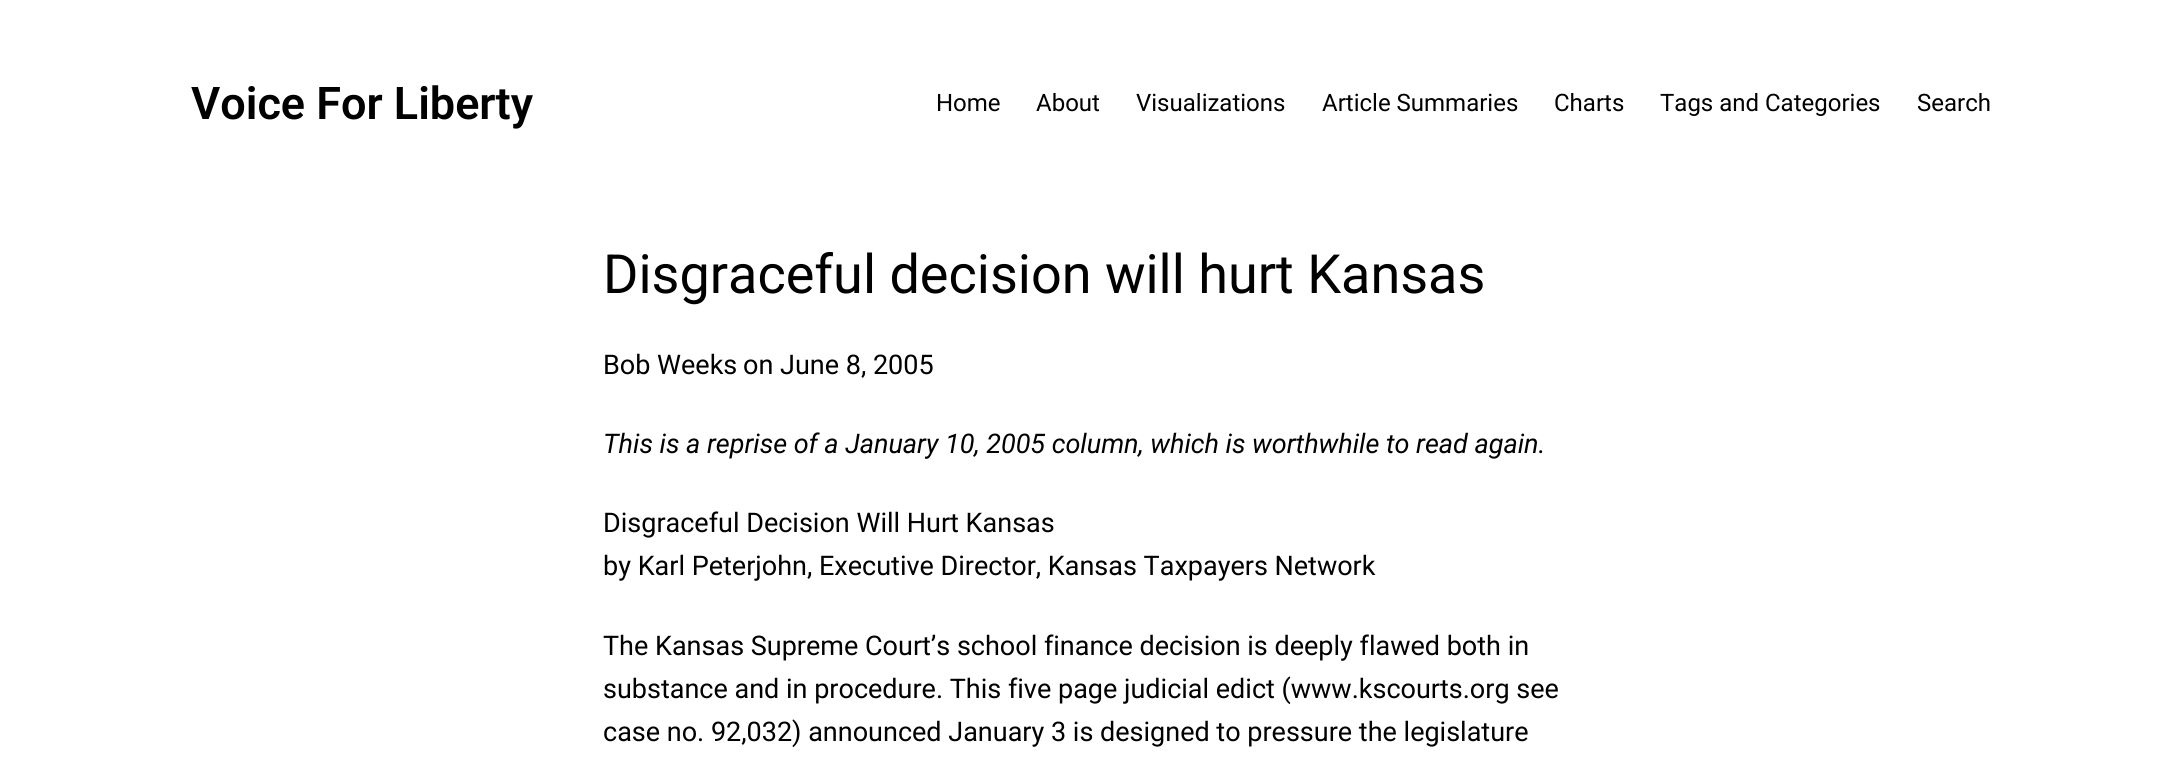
import math
import cairo

surface = cairo.ImageSurface(cairo.FORMAT_RGB24, 2180, 758)
ctx = cairo.Context(surface)
options = cairo.FontOptions()
options.set_hint_metrics(cairo.HINT_METRICS_OFF)
options.set_hint_style(cairo.HINT_STYLE_NONE)
ctx.set_font_options(options)
ctx.set_miter_limit(4)


def set_color(code):
    ctx.set_source_rgb(*(v / 255 for v in bytes.fromhex(code[-6:])))


def draw_text(x, y, s, family, size, color, bold=False, italic=False):
    ctx.select_font_face(family, cairo.FONT_SLANT_ITALIC if italic else cairo.FONT_SLANT_NORMAL, cairo.FONT_WEIGHT_BOLD if bold else cairo.FONT_WEIGHT_NORMAL)
    ctx.set_font_size(size)
    set_color(color)
    ctx.move_to(x, y)
    ctx.show_text(s)


set_color("#ffffff")
ctx.paint()
draw_text(191, 119, "Voice For Liberty", "Roboto SemiBold", 45, "#000000")
draw_text(936, 111, "Home", "Roboto", 24, "#000000")
draw_text(1036, 111, "About", "Roboto", 24, "#000000")
draw_text(1136, 111, "Visualizations", "Roboto", 24, "#000000")
draw_text(1322, 111, "Article Summaries", "Roboto", 24, "#000000")
draw_text(1554, 111, "Charts", "Roboto", 24, "#000000")
draw_text(1660, 111, "Tags and Categories", "Roboto", 24, "#000000")
draw_text(1917, 111, "Search", "Roboto", 24, "#000000")
draw_text(603, 293, "Disgraceful decision will hurt Kansas", "Roboto", 54, "#000000")
draw_text(603, 374, "Bob Weeks", "Roboto", 27, "#000000")
draw_text(743, 374, "on", "Roboto", 27, "#000000")
draw_text(780, 374, "June 8, 2005", "Roboto", 27, "#000000")
draw_text(603, 453, "This is a reprise of a January 10, 2005 column, which is worthwhile to read again.", "Roboto", 27, "#000000", italic=True)
draw_text(603, 532, "Disgraceful Decision Will Hurt Kansas", "Roboto", 27, "#000000")
draw_text(603, 575, "by Karl Peterjohn, Executive Director, Kansas Taxpayers Network", "Roboto", 27, "#000000")
draw_text(603, 655, "The Kansas Supreme Court’s school finance decision is deeply flawed both in", "Roboto", 27, "#000000")
draw_text(603, 698, "substance and in procedure. This five page judicial edict (www.kscourts.org see", "Roboto", 27, "#000000")
draw_text(603, 741, "case no. 92,032) announced January 3 is designed to pressure the legislature", "Roboto", 27, "#000000")
surface.write_to_png("output.png")
